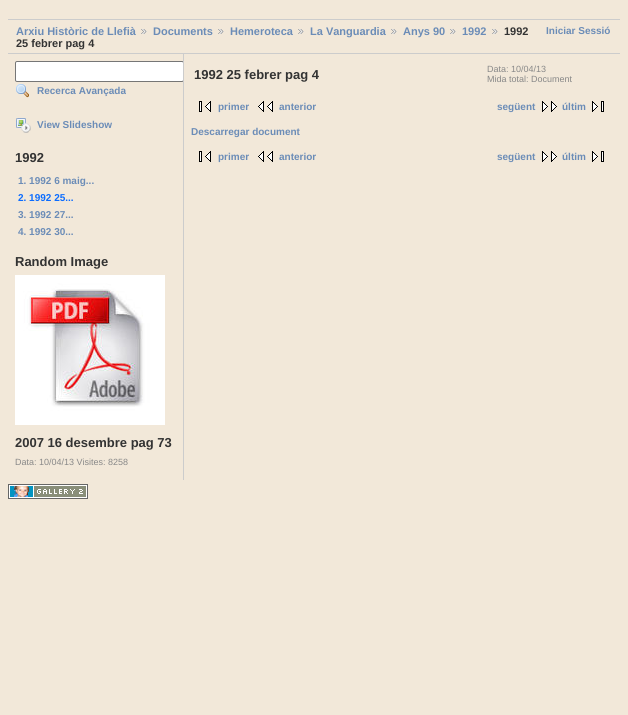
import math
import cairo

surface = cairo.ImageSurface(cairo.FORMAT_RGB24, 628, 715)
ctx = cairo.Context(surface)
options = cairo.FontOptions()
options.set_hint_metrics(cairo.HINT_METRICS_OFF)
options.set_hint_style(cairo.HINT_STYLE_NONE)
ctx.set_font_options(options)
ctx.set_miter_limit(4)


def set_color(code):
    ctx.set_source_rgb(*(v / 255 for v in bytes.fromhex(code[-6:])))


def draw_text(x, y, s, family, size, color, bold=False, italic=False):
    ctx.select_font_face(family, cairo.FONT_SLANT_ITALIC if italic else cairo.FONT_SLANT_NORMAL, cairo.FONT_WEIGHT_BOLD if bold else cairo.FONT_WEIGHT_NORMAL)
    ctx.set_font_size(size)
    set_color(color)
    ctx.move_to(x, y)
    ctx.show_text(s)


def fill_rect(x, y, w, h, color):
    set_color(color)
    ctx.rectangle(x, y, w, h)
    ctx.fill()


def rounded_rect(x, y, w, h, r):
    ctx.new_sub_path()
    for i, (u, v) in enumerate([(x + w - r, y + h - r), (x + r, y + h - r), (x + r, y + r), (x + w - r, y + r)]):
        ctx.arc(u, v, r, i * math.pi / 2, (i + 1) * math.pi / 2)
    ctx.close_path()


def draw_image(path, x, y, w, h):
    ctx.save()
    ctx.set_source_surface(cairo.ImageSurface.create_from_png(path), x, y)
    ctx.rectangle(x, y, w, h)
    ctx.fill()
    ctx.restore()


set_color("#f2e8d9")
ctx.paint()
fill_rect(8, 19, 612, 1, "#cccccc")
fill_rect(8, 53, 612, 1, "#cccccc")
draw_text(16, 35, "Arxiu Històric de Llefià", "Liberation Sans", 11, "#6b8cb7", bold=True)
draw_image("assets/img1.png", 141, 29, 6, 5)
draw_text(153, 35, "Documents", "Liberation Sans", 11, "#6b8cb7", bold=True)
draw_image("assets/img1.png", 218, 29, 6, 5)
draw_text(230, 35, "Hemeroteca", "Liberation Sans", 11, "#6b8cb7", bold=True)
draw_image("assets/img1.png", 298, 29, 6, 5)
draw_text(310, 35, "La Vanguardia", "Liberation Sans", 11, "#6b8cb7", bold=True)
draw_image("assets/img1.png", 391, 29, 6, 5)
draw_text(403, 35, "Anys 90", "Liberation Sans", 11, "#6b8cb7", bold=True)
draw_image("assets/img1.png", 450, 29, 6, 5)
draw_text(462, 35, "1992", "Liberation Sans", 11, "#6b8cb7", bold=True)
draw_image("assets/img1.png", 492, 29, 6, 5)
draw_text(504, 35, "1992", "Liberation Sans", 11, "#333333", bold=True)
draw_text(16, 47, "25 febrer pag 4", "Liberation Sans", 11, "#333333", bold=True)
draw_text(546, 34, "Iniciar Sessió", "Liberation Sans", 10, "#6b8cb7", bold=True)
fill_rect(183, 54, 1, 426, "#cccccc")
ctx.save()
ctx.rectangle(8, 54, 175, 426)
ctx.clip()
set_color("#ffffff")
rounded_rect(15.5, 61.5, 168, 20, 1.5)
ctx.fill_preserve()
set_color("#767676")
ctx.set_line_width(1)
ctx.stroke()
ctx.restore()
draw_image("assets/img2.png", 16, 84, 13, 14)
draw_text(37, 94, "Recerca Avançada", "Liberation Sans", 10, "#6b8cb7", bold=True)
draw_image("assets/img3.png", 16, 118, 15, 15)
draw_text(37, 128, "View Slideshow", "Liberation Sans", 10, "#6b8cb7", bold=True)
draw_text(15, 162, "1992", "Liberation Sans", 13, "#333333", bold=True)
draw_text(18, 184, "1. 1992 6 maig...", "Liberation Sans", 10, "#6b8cb7", bold=True)
draw_text(18, 201, "2. 1992 25...", "Liberation Sans", 10, "#0b6cff", bold=True)
draw_text(18, 218, "3. 1992 27...", "Liberation Sans", 10, "#6b8cb7", bold=True)
draw_text(18, 235, "4. 1992 30...", "Liberation Sans", 10, "#6b8cb7", bold=True)
draw_text(15, 266, "Random Image", "Liberation Sans", 13, "#333333", bold=True)
draw_image("assets/img4.png", 15, 275, 150, 150)
draw_text(15, 447, "2007 16 desembre pag 73", "Liberation Sans", 13, "#333333", bold=True)
draw_text(15, 465, "Data: 10/04/13 Visites: 8258", "Liberation Sans", 9, "#888888")
draw_text(194, 79, "1992 25 febrer pag 4", "Liberation Sans", 13, "#333333", bold=True)
draw_text(487, 72, "Data: 10/04/13", "Liberation Sans", 9, "#888888")
draw_text(487, 82, "Mida total: Document", "Liberation Sans", 9, "#888888")
draw_image("assets/img5.png", 199, 101, 12, 11)
draw_text(218, 110, "primer", "Liberation Sans", 10, "#6b8cb7", bold=True)
draw_image("assets/img6.png", 258, 101, 15, 11)
draw_text(279, 110, "anterior", "Liberation Sans", 10, "#6b8cb7", bold=True)
draw_text(497, 110, "següent", "Liberation Sans", 10, "#6b8cb7", bold=True)
draw_image("assets/img7.png", 542, 101, 15, 11)
draw_text(562, 110, "últim", "Liberation Sans", 10, "#6b8cb7", bold=True)
draw_image("assets/img8.png", 592, 101, 12, 11)
draw_text(191, 135, "Descarregar document", "Liberation Sans", 10, "#6b8cb7", bold=True)
draw_image("assets/img5.png", 199, 151, 12, 11)
draw_text(218, 160, "primer", "Liberation Sans", 10, "#6b8cb7", bold=True)
draw_image("assets/img6.png", 258, 151, 15, 11)
draw_text(279, 160, "anterior", "Liberation Sans", 10, "#6b8cb7", bold=True)
draw_text(497, 160, "següent", "Liberation Sans", 10, "#6b8cb7", bold=True)
draw_image("assets/img7.png", 542, 151, 15, 11)
draw_text(562, 160, "últim", "Liberation Sans", 10, "#6b8cb7", bold=True)
draw_image("assets/img8.png", 592, 151, 12, 11)
draw_image("assets/img9.png", 8, 484, 80, 15)
surface.write_to_png("output.png")
